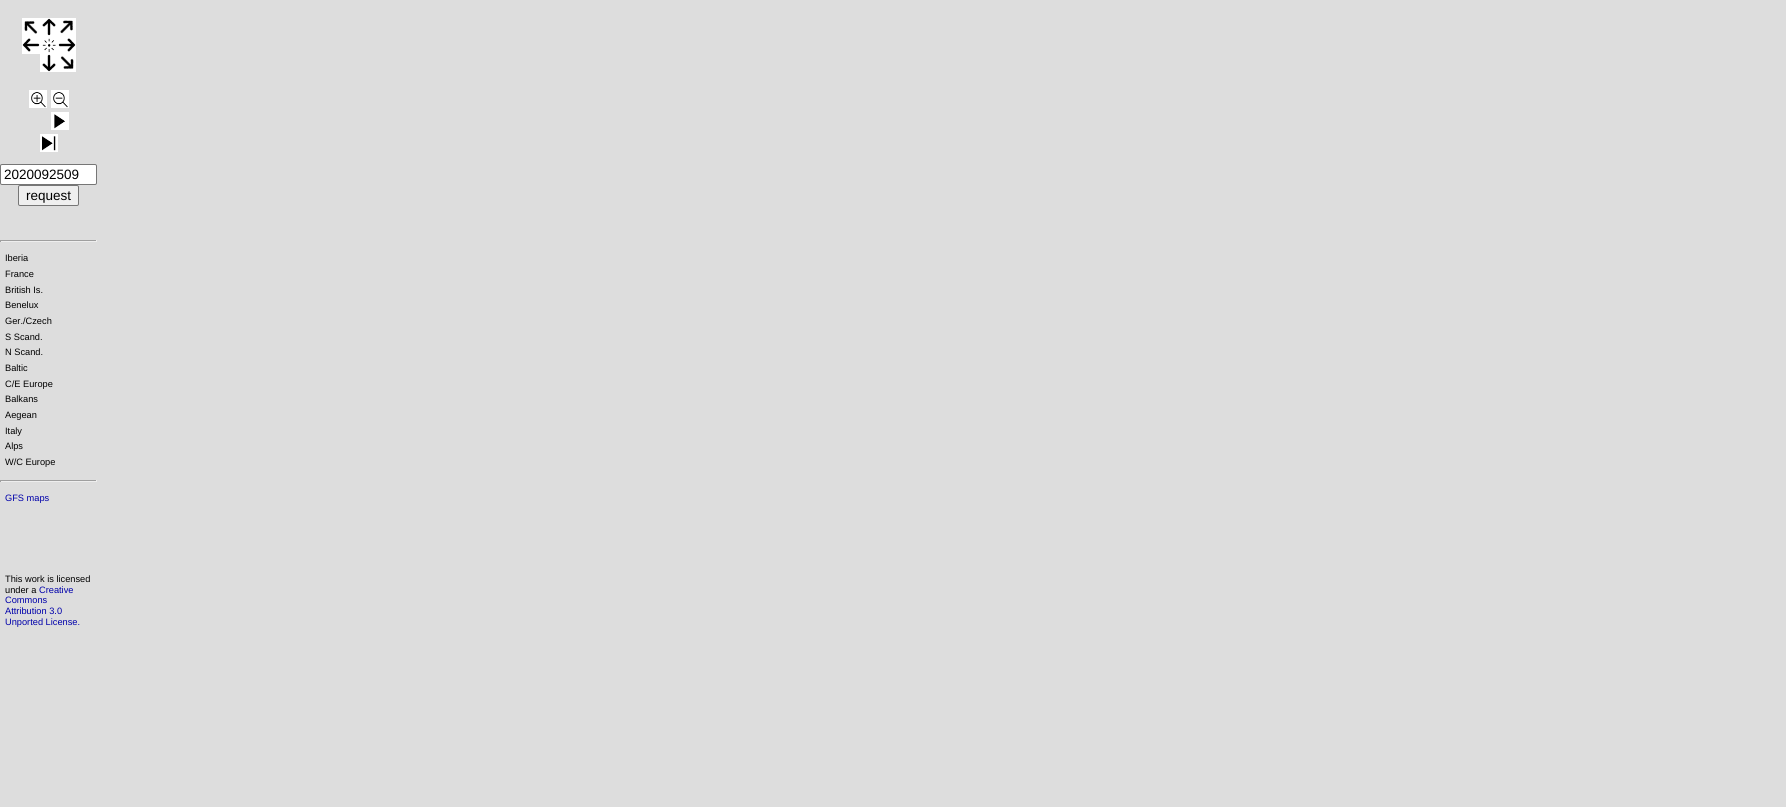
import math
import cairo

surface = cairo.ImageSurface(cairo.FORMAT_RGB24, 1786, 807)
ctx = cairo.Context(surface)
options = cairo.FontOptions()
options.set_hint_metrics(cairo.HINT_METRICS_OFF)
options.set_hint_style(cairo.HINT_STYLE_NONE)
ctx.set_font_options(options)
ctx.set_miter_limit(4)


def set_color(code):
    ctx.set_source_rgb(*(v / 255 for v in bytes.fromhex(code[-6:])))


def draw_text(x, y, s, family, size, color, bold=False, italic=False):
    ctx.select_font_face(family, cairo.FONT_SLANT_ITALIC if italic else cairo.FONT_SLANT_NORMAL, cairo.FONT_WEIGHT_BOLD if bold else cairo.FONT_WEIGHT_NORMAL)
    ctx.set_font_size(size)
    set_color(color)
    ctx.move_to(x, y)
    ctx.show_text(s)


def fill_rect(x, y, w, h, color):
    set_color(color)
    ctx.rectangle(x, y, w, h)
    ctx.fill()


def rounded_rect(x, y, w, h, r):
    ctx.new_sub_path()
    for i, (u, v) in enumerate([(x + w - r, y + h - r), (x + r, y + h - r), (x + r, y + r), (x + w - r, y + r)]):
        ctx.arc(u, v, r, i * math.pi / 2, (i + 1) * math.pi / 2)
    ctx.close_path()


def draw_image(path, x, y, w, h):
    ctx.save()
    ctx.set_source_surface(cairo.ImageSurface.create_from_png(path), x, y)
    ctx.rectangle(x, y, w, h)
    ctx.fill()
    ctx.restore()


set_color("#dddddd")
ctx.paint()
draw_image("assets/img1.png", 22, 18, 18, 18)
draw_image("assets/img2.png", 40, 18, 18, 18)
draw_image("assets/img3.png", 58, 18, 18, 18)
draw_image("assets/img4.png", 22, 36, 18, 18)
draw_image("assets/img5.png", 40, 36, 18, 18)
draw_image("assets/img6.png", 58, 36, 18, 18)
draw_image("assets/img7.png", 40, 54, 18, 18)
draw_image("assets/img8.png", 58, 54, 18, 18)
draw_image("assets/img9.png", 29, 90, 18, 18)
draw_image("assets/img10.png", 51, 90, 18, 18)
draw_image("assets/img11.png", 51, 112, 18, 18)
draw_image("assets/img12.png", 40, 134, 18, 18)
set_color("#ffffff")
rounded_rect(0.5, 164.5, 96, 20, 1.5)
ctx.fill_preserve()
set_color("#767676")
ctx.set_line_width(1)
ctx.stroke()
draw_text(4, 179, "2020092509", "Liberation Sans", 13.5, "#000000")
set_color("#efefef")
rounded_rect(18.5, 185.5, 60, 20, 1.5)
ctx.fill_preserve()
set_color("#767676")
ctx.stroke()
draw_text(26, 200, "request", "Liberation Sans", 13.5, "#000000")
fill_rect(0, 240, 97, 1, "#9f9f9f")
fill_rect(96, 240, 1, 2, "#eeeeee")
fill_rect(0, 241, 97, 1, "#eeeeee")
fill_rect(0, 240, 1, 2, "#9f9f9f")
draw_text(5, 261, "Iberia", "Liberation Sans", 9.25, "#000000")
draw_text(5, 277, "France", "Liberation Sans", 9.25, "#000000")
draw_text(5, 293, "British Is.", "Liberation Sans", 9.25, "#000000")
draw_text(5, 308, "Benelux", "Liberation Sans", 9.25, "#000000")
draw_text(5, 324, "Ger./Czech", "Liberation Sans", 9.25, "#000000")
draw_text(5, 340, "S Scand.", "Liberation Sans", 9.25, "#000000")
draw_text(5, 355, "N Scand.", "Liberation Sans", 9.25, "#000000")
draw_text(5, 371, "Baltic", "Liberation Sans", 9.25, "#000000")
draw_text(5, 387, "C/E Europe", "Liberation Sans", 9.25, "#000000")
draw_text(5, 402, "Balkans", "Liberation Sans", 9.25, "#000000")
draw_text(5, 418, "Aegean", "Liberation Sans", 9.25, "#000000")
draw_text(5, 434, "Italy", "Liberation Sans", 9.25, "#000000")
draw_text(5, 449, "Alps", "Liberation Sans", 9.25, "#000000")
draw_text(5, 465, "W/C Europe", "Liberation Sans", 9.25, "#000000")
fill_rect(0, 480, 97, 1, "#9f9f9f")
fill_rect(96, 480, 1, 2, "#eeeeee")
fill_rect(0, 481, 97, 1, "#eeeeee")
fill_rect(0, 480, 1, 2, "#9f9f9f")
draw_text(5, 501, "GFS maps", "Liberation Sans", 9.25, "#0000aa")
draw_text(5, 582, "This work is licensed", "Liberation Sans", 9.25, "#000000")
draw_text(5, 593, "under a", "Liberation Sans", 9.25, "#000000")
draw_text(39, 593, "Creative", "Liberation Sans", 9.25, "#0000aa")
draw_text(5, 603, "Commons", "Liberation Sans", 9.25, "#0000aa")
draw_text(5, 614, "Attribution 3.0", "Liberation Sans", 9.25, "#0000aa")
draw_text(5, 625, "Unported License.", "Liberation Sans", 9.25, "#0000aa")
surface.write_to_png("output.png")
